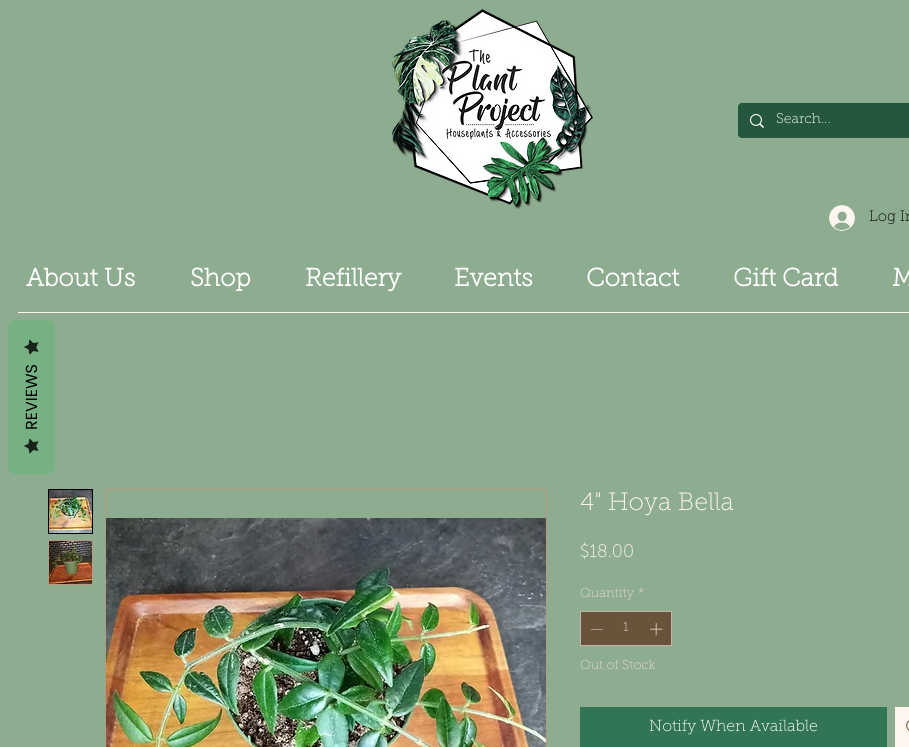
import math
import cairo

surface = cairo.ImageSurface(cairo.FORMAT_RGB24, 909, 747)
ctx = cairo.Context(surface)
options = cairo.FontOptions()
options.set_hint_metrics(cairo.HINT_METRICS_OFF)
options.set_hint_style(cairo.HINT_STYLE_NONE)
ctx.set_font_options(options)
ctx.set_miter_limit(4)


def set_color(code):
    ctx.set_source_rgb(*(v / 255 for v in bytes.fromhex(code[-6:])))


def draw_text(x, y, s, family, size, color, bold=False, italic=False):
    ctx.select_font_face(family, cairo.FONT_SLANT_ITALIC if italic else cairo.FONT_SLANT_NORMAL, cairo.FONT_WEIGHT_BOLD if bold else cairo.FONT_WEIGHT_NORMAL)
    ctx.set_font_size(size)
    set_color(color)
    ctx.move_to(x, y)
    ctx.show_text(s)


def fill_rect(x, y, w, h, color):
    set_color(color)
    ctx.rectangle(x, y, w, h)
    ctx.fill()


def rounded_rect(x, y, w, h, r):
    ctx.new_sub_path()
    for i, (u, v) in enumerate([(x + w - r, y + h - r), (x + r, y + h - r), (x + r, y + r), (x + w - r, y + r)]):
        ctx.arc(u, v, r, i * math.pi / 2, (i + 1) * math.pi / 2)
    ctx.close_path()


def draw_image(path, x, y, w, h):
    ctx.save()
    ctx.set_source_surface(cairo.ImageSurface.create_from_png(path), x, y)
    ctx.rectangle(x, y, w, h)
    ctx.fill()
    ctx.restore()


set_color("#8eac8f")
ctx.paint()
draw_image("assets/img1.png", 391, 9, 202, 200)
set_color("#24573e")
rounded_rect(738, 103, 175, 35, 4)
ctx.fill()
draw_image("assets/img2.png", 750, 114, 14, 14)
draw_text(776, 123, "Search...", "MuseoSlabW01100 Thin", 14, "#ffffff")
draw_image("assets/img3.png", 829, 205, 26, 26)
draw_text(869, 221, "Log In", "MuseoSlabW01100 Thin", 15, "#000000")
draw_text(26, 286, "About Us", "MuseoSlabW01100", 25, "#ffffff", bold=True)
draw_text(190, 286, "Shop", "MuseoSlabW01100", 25, "#ffffff", bold=True)
draw_text(305, 286, "Refillery", "MuseoSlabW01100", 25, "#ffffff", bold=True)
draw_text(454, 286, "Events", "MuseoSlabW01100", 25, "#ffffff", bold=True)
draw_text(586, 286, "Contact", "MuseoSlabW01100", 25, "#ffffff", bold=True)
draw_text(733, 286, "Gift Card", "MuseoSlabW01100", 25, "#ffffff", bold=True)
draw_text(892, 286, "M", "MuseoSlabW01100", 25, "#ffffff", bold=True)
fill_rect(18, 312, 891, 1, "#fdf6f0")
ctx.rectangle(48.5, 489.5, 44, 44)
set_color("#000000")
ctx.set_line_width(1)
ctx.stroke()
draw_image("assets/img4.png", 49, 490, 43, 43)
fill_rect(48, 540, 45, 45, "#b49b7f")
draw_image("assets/img5.png", 49, 541, 43, 43)
ctx.rectangle(105.5, 489.5, 441, 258)
ctx.stroke()
draw_image("assets/img6.png", 106, 518, 440, 229)
draw_text(580, 510, "4\" Hoya Bella", "MuseoSlabW01100 Thin", 25, "#fdf6f0")
draw_text(580, 557, "$18.00", "MuseoSlabW01100 Thin", 18, "#fdf6f0")
draw_text(580, 597, "Quantity", "MuseoSlabW01100 Thin", 13, "#e9dbcb")
draw_text(638, 597, "*", "MuseoSlabW01100 Thin", 13, "#e9dbcb")
set_color("#69533a")
ctx.rectangle(580.5, 611.5, 91, 34)
ctx.fill_preserve()
set_color("#c2b5a7")
ctx.stroke()
set_color("#e9dbcb")
ctx.set_fill_rule(cairo.FILL_RULE_EVEN_ODD)
ctx.new_path()
ctx.move_to(603, 629)
ctx.line_to(603, 629.5)
ctx.line_to(591, 629.5)
ctx.line_to(591, 629)
ctx.close_path()
ctx.fill()
draw_text(623, 631, "1", "MuseoSlabW01100 Thin", 13, "#e9dbcb")
draw_image("assets/img7.png", 650, 623, 13, 13)
draw_text(580, 669, "Out of Stock", "MuseoSlabW01100 Thin", 13, "#e9dbcb")
fill_rect(580, 707, 307, 40, "#317554")
draw_text(649, 731, "Notify When Available", "MuseoSlabW01100 Thin", 16, "#ffffff")
fill_rect(895, 707, 14, 40, "#fdf6f0")
draw_image("assets/img8.png", 906, 720, 3, 11)
set_color("#76b183")
ctx.set_fill_rule(cairo.FILL_RULE_WINDING)
ctx.new_path()
ctx.move_to(8, 466)
ctx.line_to(8, 328)
ctx.curve_to(8, 323, 12, 320, 16, 320)
ctx.line_to(47, 320)
ctx.curve_to(51, 320, 55, 323, 55, 328)
ctx.line_to(55, 466)
ctx.curve_to(55, 471, 51, 474, 47, 474)
ctx.line_to(16, 474)
ctx.curve_to(12, 474, 8, 471, 8, 466)
ctx.close_path()
ctx.fill()
draw_image("assets/img9.png", 24, 339, 15, 16)
ctx.save()
ctx.translate(37, 430)
ctx.rotate(-90 * math.pi / 180)
draw_text(0, 0, "REVIEWS", "Poppins", 16, "#000000")
ctx.restore()
draw_image("assets/img9.png", 24, 438, 15, 16)
surface.write_to_png("output.png")
